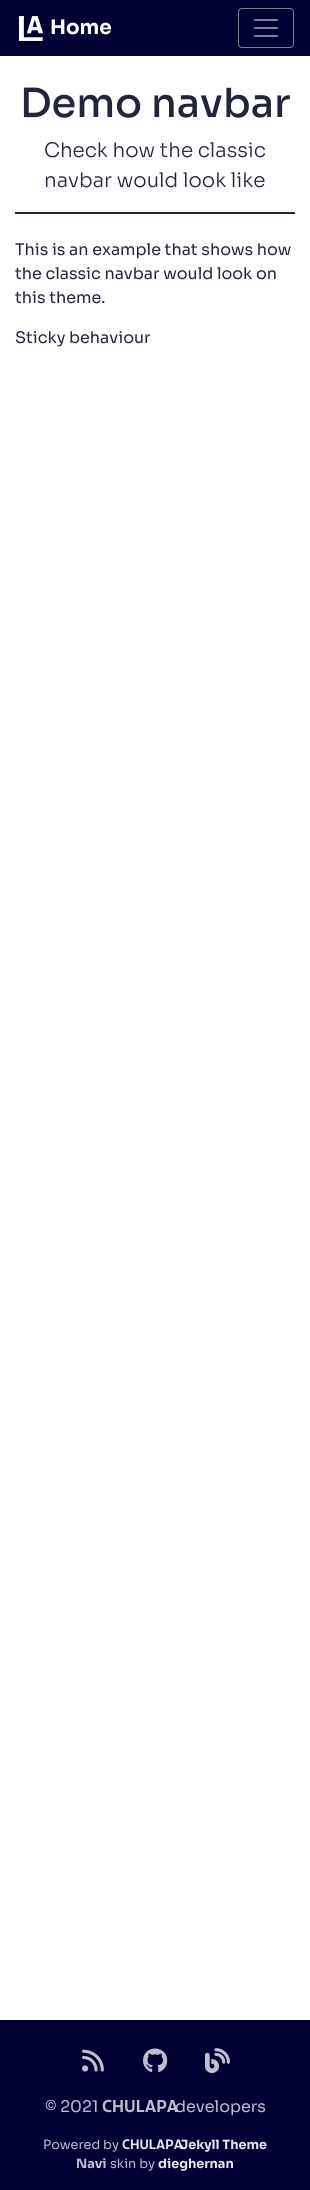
import math
import cairo

surface = cairo.ImageSurface(cairo.FORMAT_RGB24, 310, 2190)
ctx = cairo.Context(surface)
options = cairo.FontOptions()
options.set_hint_metrics(cairo.HINT_METRICS_OFF)
options.set_hint_style(cairo.HINT_STYLE_NONE)
ctx.set_font_options(options)
ctx.set_miter_limit(4)


def set_color(code):
    ctx.set_source_rgb(*(v / 255 for v in bytes.fromhex(code[-6:])))


def draw_text(x, y, s, family, size, color, bold=False, italic=False):
    ctx.select_font_face(family, cairo.FONT_SLANT_ITALIC if italic else cairo.FONT_SLANT_NORMAL, cairo.FONT_WEIGHT_BOLD if bold else cairo.FONT_WEIGHT_NORMAL)
    ctx.set_font_size(size)
    set_color(color)
    ctx.move_to(x, y)
    ctx.show_text(s)


def fill_rect(x, y, w, h, color):
    set_color(color)
    ctx.rectangle(x, y, w, h)
    ctx.fill()


def rounded_rect(x, y, w, h, r):
    ctx.new_sub_path()
    for i, (u, v) in enumerate([(x + w - r, y + h - r), (x + r, y + h - r), (x + r, y + r), (x + w - r, y + r)]):
        ctx.arc(u, v, r, i * math.pi / 2, (i + 1) * math.pi / 2)
    ctx.close_path()


def draw_image(path, x, y, w, h):
    ctx.save()
    ctx.set_source_surface(cairo.ImageSurface.create_from_png(path), x, y)
    ctx.rectangle(x, y, w, h)
    ctx.fill()
    ctx.restore()


set_color("#ffffff")
ctx.paint()
fill_rect(0, 0, 310, 56, "#000033")
draw_image("assets/img1.png", 18, 16, 26, 25)
draw_text(50, 34, "Home", "Sora", 20, "#ffffff", bold=True)
rounded_rect(238.5, 8.5, 55, 39, 3.5)
set_color("#808099")
ctx.set_line_width(1)
ctx.stroke()
draw_image("assets/img2.png", 254, 19, 24, 18)
draw_text(20, 117, "Demo navbar", "Sora Medium", 40, "#23263b")
draw_text(44, 157, "Check how the classic", "Sora Light", 20, "#23263b")
draw_text(44, 187, "navbar would look like", "Sora Light", 20, "#23263b")
fill_rect(15, 212, 280, 2, "#23263b")
draw_text(15, 255, "This is an example that shows how", "Sora", 16, "#23263b")
draw_text(15, 279, "the classic navbar would look on", "Sora", 16, "#23263b")
draw_text(15, 303, "this theme.", "Sora", 16, "#23263b")
draw_text(15, 343, "Sticky behaviour", "Sora", 16, "#23263b")
fill_rect(0, 2020, 310, 170, "#000033")
draw_image("assets/img3.png", 82, 2049, 22, 23)
draw_image("assets/img4.png", 143, 2048, 25, 25)
draw_image("assets/img5.png", 205, 2048, 25, 26)
draw_text(45, 2112, "© 2021", "Sora", 16, "#bfbfcc")
draw_text(102, 2112, "Chulapa", "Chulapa", 16, "#bfbfcc", bold=True)
draw_text(175, 2112, "developers", "Sora", 16, "#bfbfcc")
draw_text(43, 2149, "Powered by", "Sora", 12.75, "#bfbfcc")
draw_text(122, 2149, "Chulapa", "Chulapa", 12.75, "#e6e6eb", bold=True)
draw_text(180, 2149, "Jekyll Theme", "Sora", 12.75, "#e6e6eb", bold=True)
draw_text(76, 2168, "Navi", "Sora", 12.75, "#bfbfcc", bold=True)
draw_text(110, 2168, "skin by", "Sora", 12.75, "#bfbfcc")
draw_text(158, 2168, "dieghernan", "Sora", 12.75, "#e6e6eb", bold=True)
surface.write_to_png("output.png")
